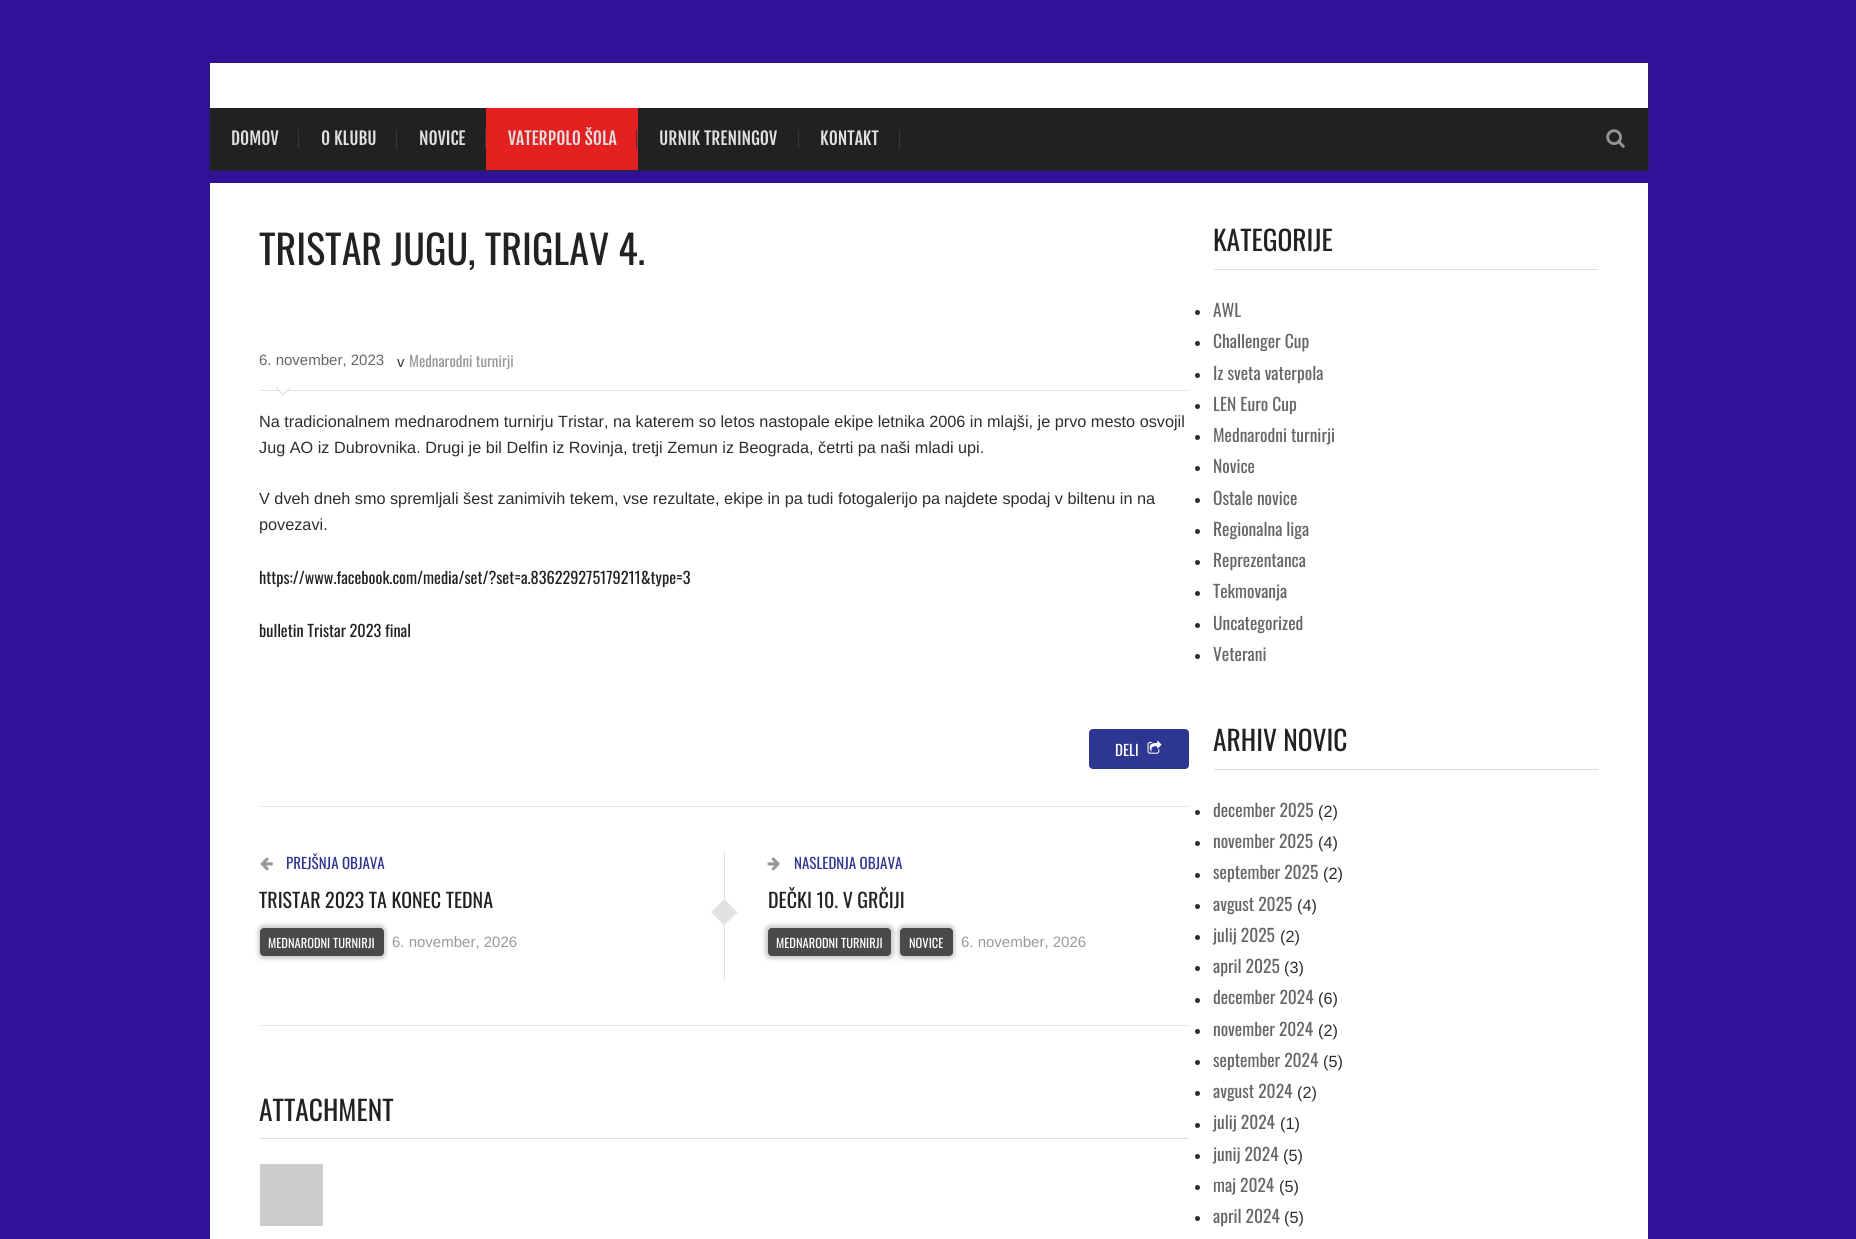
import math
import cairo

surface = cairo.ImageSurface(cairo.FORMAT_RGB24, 1856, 1239)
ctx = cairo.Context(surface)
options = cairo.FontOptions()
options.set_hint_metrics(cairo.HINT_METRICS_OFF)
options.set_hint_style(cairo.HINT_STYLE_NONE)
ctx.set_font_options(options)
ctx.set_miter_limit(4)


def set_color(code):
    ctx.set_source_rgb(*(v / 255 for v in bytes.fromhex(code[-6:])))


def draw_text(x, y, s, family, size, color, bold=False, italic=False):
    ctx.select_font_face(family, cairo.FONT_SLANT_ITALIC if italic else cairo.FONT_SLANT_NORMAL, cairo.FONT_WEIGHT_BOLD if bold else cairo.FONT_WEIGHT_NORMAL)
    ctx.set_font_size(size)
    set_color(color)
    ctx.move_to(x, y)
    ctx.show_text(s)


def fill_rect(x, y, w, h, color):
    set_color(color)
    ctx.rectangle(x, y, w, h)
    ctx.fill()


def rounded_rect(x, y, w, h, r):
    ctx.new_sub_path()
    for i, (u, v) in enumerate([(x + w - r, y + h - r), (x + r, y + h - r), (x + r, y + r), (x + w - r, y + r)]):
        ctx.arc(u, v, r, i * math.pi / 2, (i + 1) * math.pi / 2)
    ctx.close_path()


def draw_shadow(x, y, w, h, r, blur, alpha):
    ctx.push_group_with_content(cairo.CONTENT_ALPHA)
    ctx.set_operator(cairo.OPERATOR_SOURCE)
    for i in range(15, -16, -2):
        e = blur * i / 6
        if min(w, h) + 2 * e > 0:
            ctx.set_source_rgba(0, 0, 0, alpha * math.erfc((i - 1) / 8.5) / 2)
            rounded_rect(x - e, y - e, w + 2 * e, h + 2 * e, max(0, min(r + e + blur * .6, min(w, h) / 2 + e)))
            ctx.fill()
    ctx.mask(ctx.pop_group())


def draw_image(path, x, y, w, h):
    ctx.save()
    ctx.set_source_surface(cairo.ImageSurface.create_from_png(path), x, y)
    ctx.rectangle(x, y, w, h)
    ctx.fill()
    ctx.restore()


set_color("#301198")
ctx.paint()
set_color("#292a30")
draw_shadow(210, 64, 1438, 107, 0, 1, 1)
fill_rect(210, 63, 1438, 45, "#ffffff")
fill_rect(210, 108, 1438, 62, "#212121")
draw_text(231, 145, "DOMOV", "Fjalla One", 17.5, "#e0e0e0")
fill_rect(298, 130, 1, 19, "#383838")
draw_text(321, 145, "O KLUBU", "Fjalla One", 17.5, "#e0e0e0")
fill_rect(396, 130, 1, 19, "#383838")
draw_text(419, 145, "NOVICE", "Fjalla One", 17.5, "#e0e0e0")
fill_rect(485, 130, 1, 19, "#383838")
fill_rect(486, 108, 152, 62, "#e42020")
draw_text(508, 145, "VATERPOLO ŠOLA", "Fjalla One", 17.5, "#e0e0e0")
fill_rect(636, 130, 1, 19, "#383838")
draw_text(659, 145, "URNIK TRENINGOV", "Fjalla One", 17.5, "#e0e0e0")
fill_rect(798, 130, 1, 19, "#383838")
draw_text(820, 145, "KONTAKT", "Fjalla One", 17.5, "#e0e0e0")
fill_rect(899, 130, 1, 19, "#383838")
draw_image("assets/img1.png", 1606, 129, 19, 19)
fill_rect(210, 183, 1438, 1056, "#ffffff")
draw_text(259, 265, "TRISTAR JUGU, TRIGLAV 4.", "Oswald", 40, "#222222")
fill_rect(260, 390, 929, 1, "#e1e1e1")
draw_text(259, 365, "6. november, 2023", "Liberation Sans", 15, "#666666")
draw_text(397, 367, "v", "Liberation Sans", 15, "#333333")
draw_text(409, 367, "Mednarodni turnirji", "Oswald", 15, "#999999")
set_color("#ffffff")
ctx.new_path()
ctx.move_to(276, 388.5)
ctx.line_to(283, 381.5)
ctx.line_to(290, 388.5)
ctx.line_to(283, 395.5)
ctx.close_path()
ctx.fill()
set_color("#e1e1e1")
ctx.new_path()
ctx.move_to(282, 394.5)
ctx.line_to(289.5, 387.5)
ctx.line_to(290, 388.5)
ctx.line_to(283, 395.5)
ctx.close_path()
ctx.fill()
ctx.new_path()
ctx.move_to(276, 388.5)
ctx.line_to(277, 387.5)
ctx.line_to(284, 394.5)
ctx.line_to(283, 395.5)
ctx.close_path()
ctx.fill()
draw_text(259, 427, "Na tradicionalnem mednarodnem turnirju Tristar, na katerem so letos nastopale ekipe letnika 2006 in mlajši, je prvo mesto osvojil", "Liberation Sans", 16.25, "#2d2d2d")
draw_text(259, 453, "Jug AO iz Dubrovnika. Drugi je bil Delfin iz Rovinja, tretji Zemun iz Beograda, četrti pa naši mladi upi.", "Liberation Sans", 16.25, "#2d2d2d")
draw_text(259, 504, "V dveh dneh smo spremljali šest zanimivih tekem, vse rezultate, ekipe in pa tudi fotogalerijo pa najdete spodaj v biltenu in na", "Liberation Sans", 16.25, "#2d2d2d")
draw_text(259, 530, "povezavi.", "Liberation Sans", 16.25, "#2d2d2d")
draw_text(259, 584, "https://www.facebook.com/media/set/?set=a.836229275179211&type=3", "Oswald", 16.25, "#222222")
draw_text(259, 637, "bulletin Tristar 2023 final", "Oswald", 16.25, "#222222")
set_color("#2d3691")
rounded_rect(1089, 729, 100, 40, 4)
ctx.fill()
draw_text(1115, 756, "DELI", "Oswald", 15, "#ffffff")
draw_image("assets/img2.png", 1147, 740, 15, 14)
fill_rect(260, 806, 929, 1, "#e2e2e2")
fill_rect(260, 1025, 929, 1, "#e2e2e2")
draw_image("assets/img3.png", 260, 857, 13, 14)
draw_text(286, 869, "PREJŠNJA OBJAVA", "Oswald", 15, "#2d3691")
draw_text(259, 908, "TRISTAR 2023 TA KONEC TEDNA", "Oswald", 20, "#222222")
set_color("#cccccc")
draw_shadow(258, 925, 128, 34, 6, 2, 1)
set_color("#4a4a4a")
rounded_rect(260, 928, 124, 28, 4)
ctx.fill()
draw_text(268, 948, "MEDNARODNI TURNIRJI", "Oswald", 12.5, "#ffffff")
draw_text(392, 947, "6. november, 2026", "Liberation Sans", 15, "#999999")
set_color("#e2e2e2")
ctx.new_path()
ctx.move_to(724.5, 899)
ctx.line_to(737.5, 912.5)
ctx.line_to(724, 925.5)
ctx.line_to(711, 912)
ctx.close_path()
ctx.fill()
fill_rect(724, 851, 1, 130, "#e2e2e2")
draw_image("assets/img4.png", 767, 857, 13, 14)
draw_text(794, 869, "NASLEDNJA OBJAVA", "Oswald", 15, "#2d3691")
draw_text(768, 908, "DEČKI 10. V GRČIJI", "Oswald", 20, "#222222")
set_color("#cccccc")
draw_shadow(765, 925, 129, 34, 6, 2, 1)
set_color("#4a4a4a")
rounded_rect(768, 928, 123, 28, 4)
ctx.fill()
draw_text(776, 948, "MEDNARODNI TURNIRJI", "Oswald", 12.5, "#ffffff")
set_color("#cccccc")
draw_shadow(898, 925, 57, 34, 6, 2, 1)
set_color("#4a4a4a")
rounded_rect(900, 928, 53, 28, 4)
ctx.fill()
draw_text(909, 948, "NOVICE", "Oswald", 12.5, "#ffffff")
draw_text(961, 947, "6. november, 2026", "Liberation Sans", 15, "#999999")
fill_rect(260, 1138, 929, 1, "#dbdbdb")
draw_text(259, 1121, "ATTACHMENT", "Oswald", 27.5, "#222222")
fill_rect(260, 1164, 63, 62, "#cccccc")
fill_rect(1214, 269, 384, 1, "#dbdbdb")
draw_text(1213, 251, "KATEGORIJE", "Oswald", 27.5, "#222222")
set_color("#2d2d2d")
ctx.new_path()
ctx.arc(1197.5, 312.5, 2.5, 0, 2 * math.pi)
ctx.fill()
draw_text(1213, 317, "AWL", "Oswald", 17.5, "#666666")
set_color("#2d2d2d")
ctx.new_path()
ctx.arc(1197.5, 343.5, 2.5, 0, 2 * math.pi)
ctx.fill()
draw_text(1213, 348, "Challenger Cup", "Oswald", 17.5, "#666666")
set_color("#2d2d2d")
ctx.new_path()
ctx.arc(1197.5, 375.5, 2.5, 0, 2 * math.pi)
ctx.fill()
draw_text(1213, 380, "Iz sveta vaterpola", "Oswald", 17.5, "#666666")
set_color("#2d2d2d")
ctx.new_path()
ctx.arc(1197.5, 406.5, 2.5, 0, 2 * math.pi)
ctx.fill()
draw_text(1213, 411, "LEN Euro Cup", "Oswald", 17.5, "#666666")
set_color("#2d2d2d")
ctx.new_path()
ctx.arc(1197.5, 437.5, 2.5, 0, 2 * math.pi)
ctx.fill()
draw_text(1213, 442, "Mednarodni turnirji", "Oswald", 17.5, "#666666")
set_color("#2d2d2d")
ctx.new_path()
ctx.arc(1197.5, 468.5, 2.5, 0, 2 * math.pi)
ctx.fill()
draw_text(1213, 473, "Novice", "Oswald", 17.5, "#666666")
set_color("#2d2d2d")
ctx.new_path()
ctx.arc(1197.5, 500.5, 2.5, 0, 2 * math.pi)
ctx.fill()
draw_text(1213, 505, "Ostale novice", "Oswald", 17.5, "#666666")
set_color("#2d2d2d")
ctx.new_path()
ctx.arc(1197.5, 531.5, 2.5, 0, 2 * math.pi)
ctx.fill()
draw_text(1213, 536, "Regionalna liga", "Oswald", 17.5, "#666666")
set_color("#2d2d2d")
ctx.new_path()
ctx.arc(1197.5, 562.5, 2.5, 0, 2 * math.pi)
ctx.fill()
draw_text(1213, 567, "Reprezentanca", "Oswald", 17.5, "#666666")
set_color("#2d2d2d")
ctx.new_path()
ctx.arc(1197.5, 593.5, 2.5, 0, 2 * math.pi)
ctx.fill()
draw_text(1213, 598, "Tekmovanja", "Oswald", 17.5, "#666666")
set_color("#2d2d2d")
ctx.new_path()
ctx.arc(1197.5, 625.5, 2.5, 0, 2 * math.pi)
ctx.fill()
draw_text(1213, 630, "Uncategorized", "Oswald", 17.5, "#666666")
set_color("#2d2d2d")
ctx.new_path()
ctx.arc(1197.5, 656.5, 2.5, 0, 2 * math.pi)
ctx.fill()
draw_text(1213, 661, "Veterani", "Oswald", 17.5, "#666666")
fill_rect(1214, 769, 384, 1, "#dbdbdb")
draw_text(1213, 751, "ARHIV NOVIC", "Oswald", 27.5, "#222222")
set_color("#2d2d2d")
ctx.new_path()
ctx.arc(1197.5, 812.5, 2.5, 0, 2 * math.pi)
ctx.fill()
draw_text(1213, 817, "december 2025", "Oswald", 17.5, "#666666")
draw_text(1318, 817, "(2)", "Liberation Sans", 16.25, "#2d2d2d")
ctx.new_path()
ctx.arc(1197.5, 843.5, 2.5, 0, 2 * math.pi)
ctx.fill()
draw_text(1213, 848, "november 2025", "Oswald", 17.5, "#666666")
draw_text(1318, 848, "(4)", "Liberation Sans", 16.25, "#2d2d2d")
ctx.new_path()
ctx.arc(1197.5, 875.5, 2.5, 0, 2 * math.pi)
ctx.fill()
draw_text(1213, 879, "september 2025", "Oswald", 17.5, "#666666")
draw_text(1323, 879, "(2)", "Liberation Sans", 16.25, "#2d2d2d")
ctx.new_path()
ctx.arc(1197.5, 906.5, 2.5, 0, 2 * math.pi)
ctx.fill()
draw_text(1213, 911, "avgust 2025", "Oswald", 17.5, "#666666")
draw_text(1297, 911, "(4)", "Liberation Sans", 16.25, "#2d2d2d")
ctx.new_path()
ctx.arc(1197.5, 937.5, 2.5, 0, 2 * math.pi)
ctx.fill()
draw_text(1213, 942, "julij 2025", "Oswald", 17.5, "#666666")
draw_text(1280, 942, "(2)", "Liberation Sans", 16.25, "#2d2d2d")
ctx.new_path()
ctx.arc(1197.5, 968.5, 2.5, 0, 2 * math.pi)
ctx.fill()
draw_text(1213, 973, "april 2025", "Oswald", 17.5, "#666666")
draw_text(1284, 973, "(3)", "Liberation Sans", 16.25, "#2d2d2d")
ctx.new_path()
ctx.arc(1197.5, 1000.5, 2.5, 0, 2 * math.pi)
ctx.fill()
draw_text(1213, 1004, "december 2024", "Oswald", 17.5, "#666666")
draw_text(1318, 1004, "(6)", "Liberation Sans", 16.25, "#2d2d2d")
ctx.new_path()
ctx.arc(1197.5, 1031.5, 2.5, 0, 2 * math.pi)
ctx.fill()
draw_text(1213, 1036, "november 2024", "Oswald", 17.5, "#666666")
draw_text(1318, 1036, "(2)", "Liberation Sans", 16.25, "#2d2d2d")
ctx.new_path()
ctx.arc(1197.5, 1062.5, 2.5, 0, 2 * math.pi)
ctx.fill()
draw_text(1213, 1067, "september 2024", "Oswald", 17.5, "#666666")
draw_text(1323, 1067, "(5)", "Liberation Sans", 16.25, "#2d2d2d")
ctx.new_path()
ctx.arc(1197.5, 1093.5, 2.5, 0, 2 * math.pi)
ctx.fill()
draw_text(1213, 1098, "avgust 2024", "Oswald", 17.5, "#666666")
draw_text(1297, 1098, "(2)", "Liberation Sans", 16.25, "#2d2d2d")
ctx.new_path()
ctx.arc(1197.5, 1125.5, 2.5, 0, 2 * math.pi)
ctx.fill()
draw_text(1213, 1129, "julij 2024", "Oswald", 17.5, "#666666")
draw_text(1280, 1129, "(1)", "Liberation Sans", 16.25, "#2d2d2d")
ctx.new_path()
ctx.arc(1197.5, 1156.5, 2.5, 0, 2 * math.pi)
ctx.fill()
draw_text(1213, 1161, "junij 2024", "Oswald", 17.5, "#666666")
draw_text(1283, 1161, "(5)", "Liberation Sans", 16.25, "#2d2d2d")
ctx.new_path()
ctx.arc(1197.5, 1187.5, 2.5, 0, 2 * math.pi)
ctx.fill()
draw_text(1213, 1192, "maj 2024", "Oswald", 17.5, "#666666")
draw_text(1279, 1192, "(5)", "Liberation Sans", 16.25, "#2d2d2d")
ctx.new_path()
ctx.arc(1197.5, 1218.5, 2.5, 0, 2 * math.pi)
ctx.fill()
draw_text(1213, 1223, "april 2024", "Oswald", 17.5, "#666666")
draw_text(1284, 1223, "(5)", "Liberation Sans", 16.25, "#2d2d2d")
surface.write_to_png("output.png")
